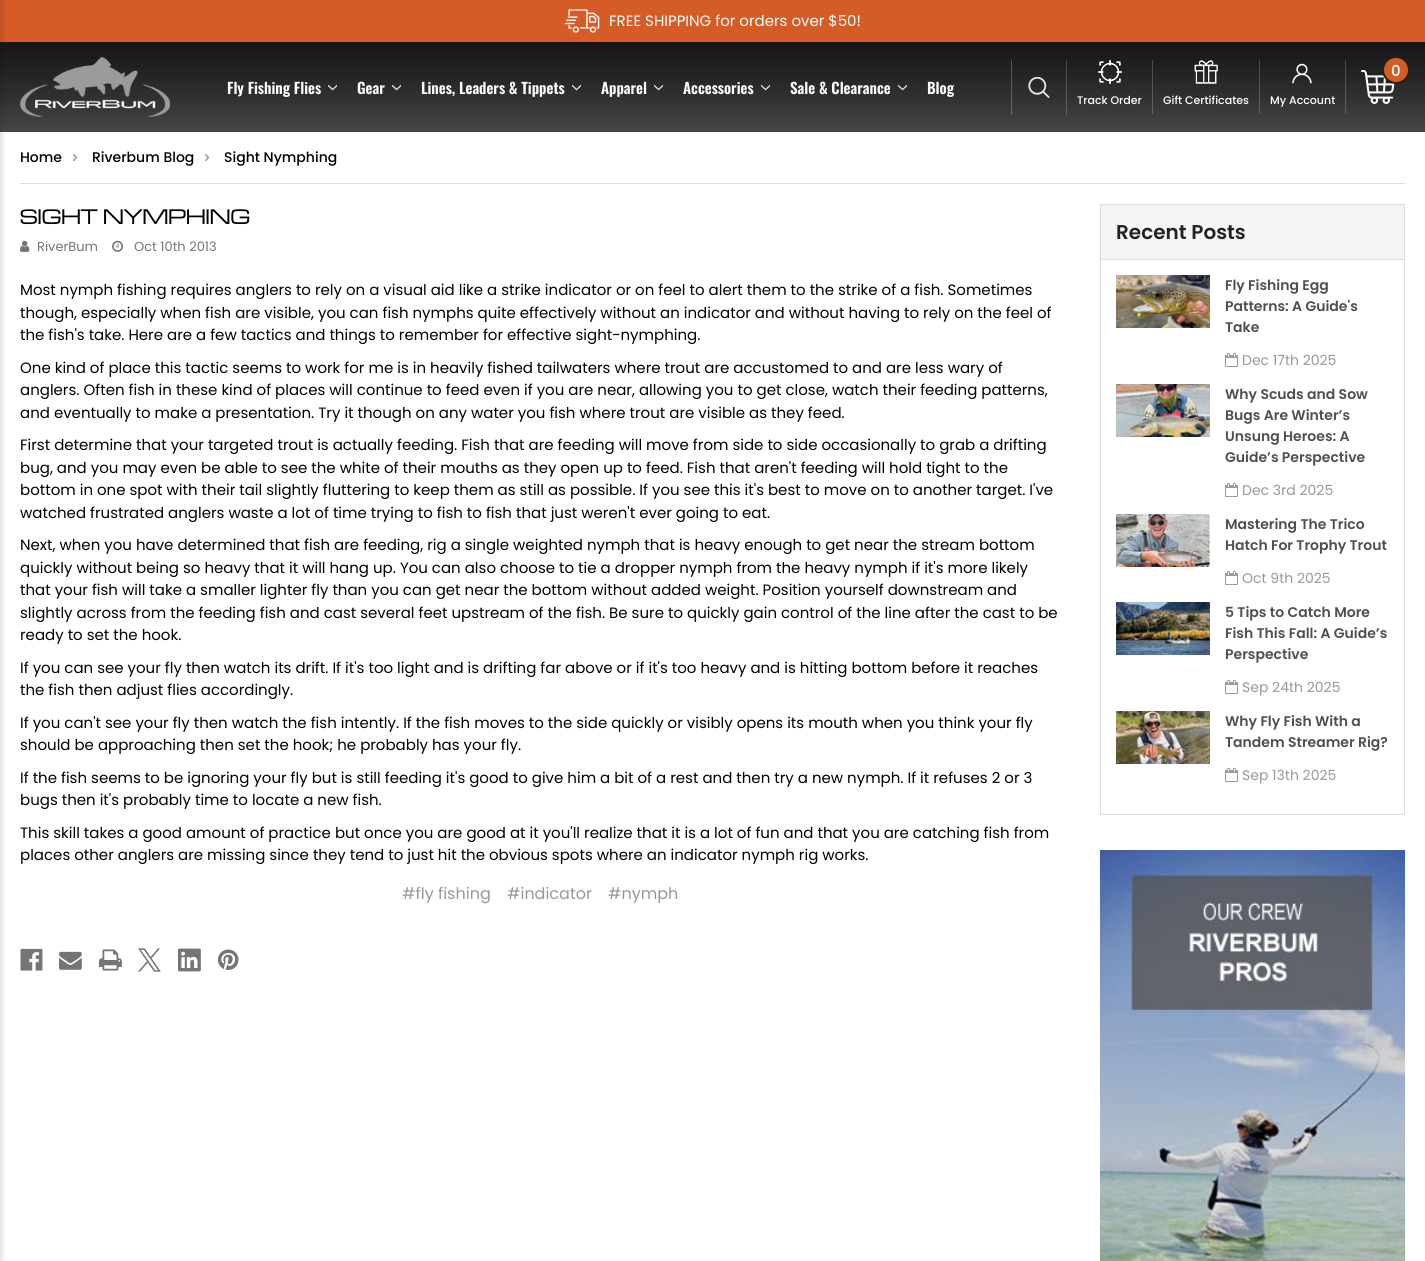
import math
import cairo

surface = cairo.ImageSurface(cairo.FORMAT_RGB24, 1425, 1261)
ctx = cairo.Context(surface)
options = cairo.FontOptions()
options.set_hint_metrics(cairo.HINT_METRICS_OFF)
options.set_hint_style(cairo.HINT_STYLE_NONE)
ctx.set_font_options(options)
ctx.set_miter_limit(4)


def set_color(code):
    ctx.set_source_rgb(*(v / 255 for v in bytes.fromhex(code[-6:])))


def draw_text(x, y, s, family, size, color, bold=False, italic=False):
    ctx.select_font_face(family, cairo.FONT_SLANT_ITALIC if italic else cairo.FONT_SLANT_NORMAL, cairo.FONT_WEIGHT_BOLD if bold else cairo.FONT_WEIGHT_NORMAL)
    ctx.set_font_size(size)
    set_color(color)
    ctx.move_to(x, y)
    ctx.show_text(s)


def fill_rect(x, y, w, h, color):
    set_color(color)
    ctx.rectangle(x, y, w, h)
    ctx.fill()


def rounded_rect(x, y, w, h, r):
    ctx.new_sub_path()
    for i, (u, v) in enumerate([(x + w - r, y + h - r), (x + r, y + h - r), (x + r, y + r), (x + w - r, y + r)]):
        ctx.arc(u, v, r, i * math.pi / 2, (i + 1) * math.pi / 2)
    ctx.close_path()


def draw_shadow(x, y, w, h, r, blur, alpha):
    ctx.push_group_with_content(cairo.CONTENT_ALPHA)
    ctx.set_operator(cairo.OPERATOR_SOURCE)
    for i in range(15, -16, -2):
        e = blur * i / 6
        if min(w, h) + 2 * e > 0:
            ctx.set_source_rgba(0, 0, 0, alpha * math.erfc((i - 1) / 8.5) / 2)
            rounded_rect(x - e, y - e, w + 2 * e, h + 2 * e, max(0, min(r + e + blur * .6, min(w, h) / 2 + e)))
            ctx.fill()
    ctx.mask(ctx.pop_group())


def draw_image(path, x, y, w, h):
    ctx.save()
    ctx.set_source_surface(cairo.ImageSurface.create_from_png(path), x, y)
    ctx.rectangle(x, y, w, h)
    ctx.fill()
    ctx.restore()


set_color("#ffffff")
ctx.paint()
draw_image("assets/img1.png", 0, 42, 1425, 90)
fill_rect(0, 0, 1425, 42, "#d55c27")
set_color("#000000")
draw_shadow(-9, 0, 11, 1261, 0, 3, 0.15)
draw_image("assets/img2.png", 564, 9, 36, 24)
draw_text(609, 26, "FREE SHIPPING for orders over $50!", "Poppins", 15, "#ffffff")
draw_image("assets/img3.png", 20, 57, 150, 60)
draw_text(227, 94, "Fly Fishing Flies", "Oswald SemiBold", 15, "#ffffff")
draw_image("assets/img4.png", 328, 84, 9, 7)
draw_text(357, 94, "Gear", "Oswald SemiBold", 15, "#ffffff")
draw_image("assets/img4.png", 392, 84, 9, 7)
draw_text(421, 94, "Lines, Leaders & Tippets", "Oswald SemiBold", 15, "#ffffff")
draw_image("assets/img4.png", 572, 84, 9, 7)
draw_text(601, 94, "Apparel", "Oswald SemiBold", 15, "#ffffff")
draw_image("assets/img4.png", 654, 84, 9, 7)
draw_text(683, 94, "Accessories", "Oswald SemiBold", 15, "#ffffff")
draw_image("assets/img4.png", 761, 84, 9, 7)
draw_text(790, 94, "Sale & Clearance", "Oswald SemiBold", 15, "#ffffff")
draw_image("assets/img4.png", 898, 84, 9, 7)
draw_text(927, 94, "Blog", "Oswald SemiBold", 15, "#ffffff")
ctx.set_source_rgba(1, 1, 1, 0.25)
ctx.rectangle(1011, 60, 1, 55)
ctx.fill()
draw_image("assets/img5.png", 1028, 77, 22, 21)
ctx.set_source_rgba(1, 1, 1, 0.2)
ctx.rectangle(1066, 60, 1, 55)
ctx.fill()
draw_image("assets/img6.png", 1361, 70, 34, 34)
set_color("#d55c27")
ctx.arc(1396, 70, 13, 0, 2 * math.pi)
ctx.fill_preserve()
set_color("#1f2311")
ctx.stroke()
draw_text(1391, 76, "0", "Poppins Medium", 15, "#ffffff")
draw_image("assets/img7.png", 1098, 60, 24, 24)
ctx.set_source_rgba(1, 1, 1, 0.2)
ctx.rectangle(1152, 60, 1, 54)
ctx.fill()
draw_text(1077, 104, "Track Order", "Poppins Medium", 11, "#ffffff")
draw_image("assets/img8.png", 1194, 60, 24, 24)
ctx.set_source_rgba(1, 1, 1, 0.2)
ctx.rectangle(1259, 60, 1, 54)
ctx.fill()
draw_text(1163, 104, "Gift Certificates", "Poppins Medium", 11, "#ffffff")
draw_image("assets/img9.png", 1292, 63, 20, 21)
ctx.set_source_rgba(1, 1, 1, 0.2)
ctx.rectangle(1345, 60, 1, 54)
ctx.fill()
draw_text(1270, 104, "My Account", "Poppins Medium", 11, "#ffffff")
fill_rect(20, 183, 1385, 1, "#dcdcdc")
draw_text(20, 162, "Home", "Poppins Medium", 14, "#000000")
draw_image("assets/img10.png", 73, 154, 4, 7)
draw_text(92, 162, "Riverbum Blog", "Poppins Medium", 14, "#000000")
draw_image("assets/img10.png", 205, 154, 4, 7)
draw_text(224, 162, "Sight Nymphing", "Poppins Medium", 14, "#000000")
draw_text(20, 224, "SIGHT NYMPHING", "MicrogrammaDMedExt", 22, "#000000")
draw_image("assets/img11.png", 20, 240, 10, 12)
draw_text(37, 251, "RiverBum", "Poppins", 13, "#757575")
draw_image("assets/img12.png", 112, 240, 12, 12)
draw_text(134, 251, "Oct 10th 2013", "Poppins", 13, "#757575")
draw_text(20, 295, "Most nymph fishing requires anglers to rely on a visual aid like a strike indicator or on feel to alert them to the strike of a fish. Sometimes", "Poppins", 15, "#000000")
draw_text(20, 318, "though, especially when fish are visible, you can fish nymphs quite effectively without an indicator and without having to rely on the feel of", "Poppins", 15, "#000000")
draw_text(20, 340, "the fish's take. Here are a few tactics and things to remember for effective sight-nymphing.", "Poppins", 15, "#000000")
draw_text(20, 373, "One kind of place this tactic seems to work for me is in heavily fished tailwaters where trout are accustomed to and are less wary of", "Poppins", 15, "#000000")
draw_text(20, 395, "anglers. Often fish in these kind of places will continue to feed even if you are near, allowing you to get close, watch their feeding patterns,", "Poppins", 15, "#000000")
draw_text(20, 418, "and eventually to make a presentation. Try it though on any water you fish where trout are visible as they feed.", "Poppins", 15, "#000000")
draw_text(20, 450, "First determine that your targeted trout is actually feeding. Fish that are feeding will move from side to side occasionally to grab a drifting", "Poppins", 15, "#000000")
draw_text(20, 473, "bug, and you may even be able to see the white of their mouths as they open up to feed. Fish that aren't feeding will hold tight to the", "Poppins", 15, "#000000")
draw_text(20, 495, "bottom in one spot with their tail slightly fluttering to keep them as still as possible. If you see this it's best to move on to another target. I've", "Poppins", 15, "#000000")
draw_text(20, 518, "watched frustrated anglers waste a lot of time trying to fish to fish that just weren't ever going to eat.", "Poppins", 15, "#000000")
draw_text(20, 550, "Next, when you have determined that fish are feeding, rig a single weighted nymph that is heavy enough to get near the stream bottom", "Poppins", 15, "#000000")
draw_text(20, 573, "quickly without being so heavy that it will hang up. You can also choose to tie a dropper nymph from the heavy nymph if it's more likely", "Poppins", 15, "#000000")
draw_text(20, 595, "that your fish will take a smaller lighter fly than you can get near the bottom without added weight. Position yourself downstream and", "Poppins", 15, "#000000")
draw_text(20, 618, "slightly across from the feeding fish and cast several feet upstream of the fish. Be sure to quickly gain control of the line after the cast to be", "Poppins", 15, "#000000")
draw_text(20, 640, "ready to set the hook.", "Poppins", 15, "#000000")
draw_text(20, 673, "If you can see your fly then watch its drift. If it's too light and is drifting far above or if it's too heavy and is hitting bottom before it reaches", "Poppins", 15, "#000000")
draw_text(20, 695, "the fish then adjust flies accordingly.", "Poppins", 15, "#000000")
draw_text(20, 728, "If you can't see your fly then watch the fish intently. If the fish moves to the side quickly or visibly opens its mouth when you think your fly", "Poppins", 15, "#000000")
draw_text(20, 750, "should be approaching then set the hook; he probably has your fly.", "Poppins", 15, "#000000")
draw_text(20, 783, "If the fish seems to be ignoring your fly but is still feeding it's good to give him a bit of a rest and then try a new nymph. If it refuses 2 or 3", "Poppins", 15, "#000000")
draw_text(20, 805, "bugs then it's probably time to locate a new fish.", "Poppins", 15, "#000000")
draw_text(20, 838, "This skill takes a good amount of practice but once you are good at it you'll realize that it is a lot of fun and that you are catching fish from", "Poppins", 15, "#000000")
draw_text(20, 860, "places other anglers are missing since they tend to just hit the obvious spots where an indicator nymph rig works.", "Poppins", 15, "#000000")
draw_text(402, 899, "#fly fishing", "Poppins", 16, "#989898")
draw_text(507, 899, "#indicator", "Poppins", 16, "#989898")
draw_text(608, 899, "#nymph", "Poppins", 16, "#989898")
draw_image("assets/img13.png", 20, 948, 23, 23)
draw_image("assets/img14.png", 59, 951, 23, 19)
draw_image("assets/img15.png", 99, 949, 23, 22)
draw_image("assets/img16.png", 138, 948, 23, 24)
draw_image("assets/img17.png", 178, 948, 23, 24)
draw_image("assets/img18.png", 217, 949, 22, 21)
ctx.rectangle(1100.5, 204.5, 304, 610)
set_color("#dedede")
ctx.set_line_width(1)
ctx.stroke()
fill_rect(1101, 205, 303, 54, "#f5f5f5")
fill_rect(1101, 259, 303, 1, "#dedede")
draw_text(1116, 239, "Recent Posts", "Poppins SemiBold", 20, "#222222")
draw_image("assets/img19.png", 1116, 275, 94, 53)
draw_text(1225, 290, "Fly Fishing Egg", "Poppins SemiBold", 14, "#4f4f4f")
draw_text(1225, 311, "Patterns: A Guide's", "Poppins SemiBold", 14, "#4f4f4f")
draw_text(1225, 332, "Take", "Poppins SemiBold", 14, "#4f4f4f")
draw_image("assets/img20.png", 1225, 353, 13, 14)
draw_text(1242, 365, "Dec 17th 2025", "Poppins", 14, "#989898")
draw_image("assets/img21.png", 1116, 384, 94, 53)
draw_text(1225, 399, "Why Scuds and Sow", "Poppins SemiBold", 14, "#4f4f4f")
draw_text(1225, 420, "Bugs Are Winter’s", "Poppins SemiBold", 14, "#4f4f4f")
draw_text(1225, 441, "Unsung Heroes: A", "Poppins SemiBold", 14, "#4f4f4f")
draw_text(1225, 462, "Guide’s Perspective", "Poppins SemiBold", 14, "#4f4f4f")
draw_image("assets/img20.png", 1225, 483, 13, 14)
draw_text(1242, 495, "Dec 3rd 2025", "Poppins", 14, "#989898")
draw_image("assets/img22.png", 1116, 514, 94, 53)
draw_text(1225, 529, "Mastering The Trico", "Poppins SemiBold", 14, "#4f4f4f")
draw_text(1225, 550, "Hatch For Trophy Trout", "Poppins SemiBold", 14, "#4f4f4f")
draw_image("assets/img20.png", 1225, 571, 13, 14)
draw_text(1242, 583, "Oct 9th 2025", "Poppins", 14, "#989898")
draw_image("assets/img23.png", 1116, 602, 94, 53)
draw_text(1225, 617, "5 Tips to Catch More", "Poppins SemiBold", 14, "#4f4f4f")
draw_text(1225, 638, "Fish This Fall: A Guide’s", "Poppins SemiBold", 14, "#4f4f4f")
draw_text(1225, 659, "Perspective", "Poppins SemiBold", 14, "#4f4f4f")
draw_image("assets/img20.png", 1225, 680, 13, 14)
draw_text(1242, 692, "Sep 24th 2025", "Poppins", 14, "#989898")
draw_image("assets/img24.png", 1116, 711, 94, 53)
draw_text(1225, 726, "Why Fly Fish With a", "Poppins SemiBold", 14, "#4f4f4f")
draw_text(1225, 747, "Tandem Streamer Rig?", "Poppins SemiBold", 14, "#4f4f4f")
draw_image("assets/img20.png", 1225, 768, 13, 14)
draw_text(1242, 780, "Sep 13th 2025", "Poppins", 14, "#989898")
draw_image("assets/img25.png", 1100, 850, 305, 411)
surface.write_to_png("output.png")
